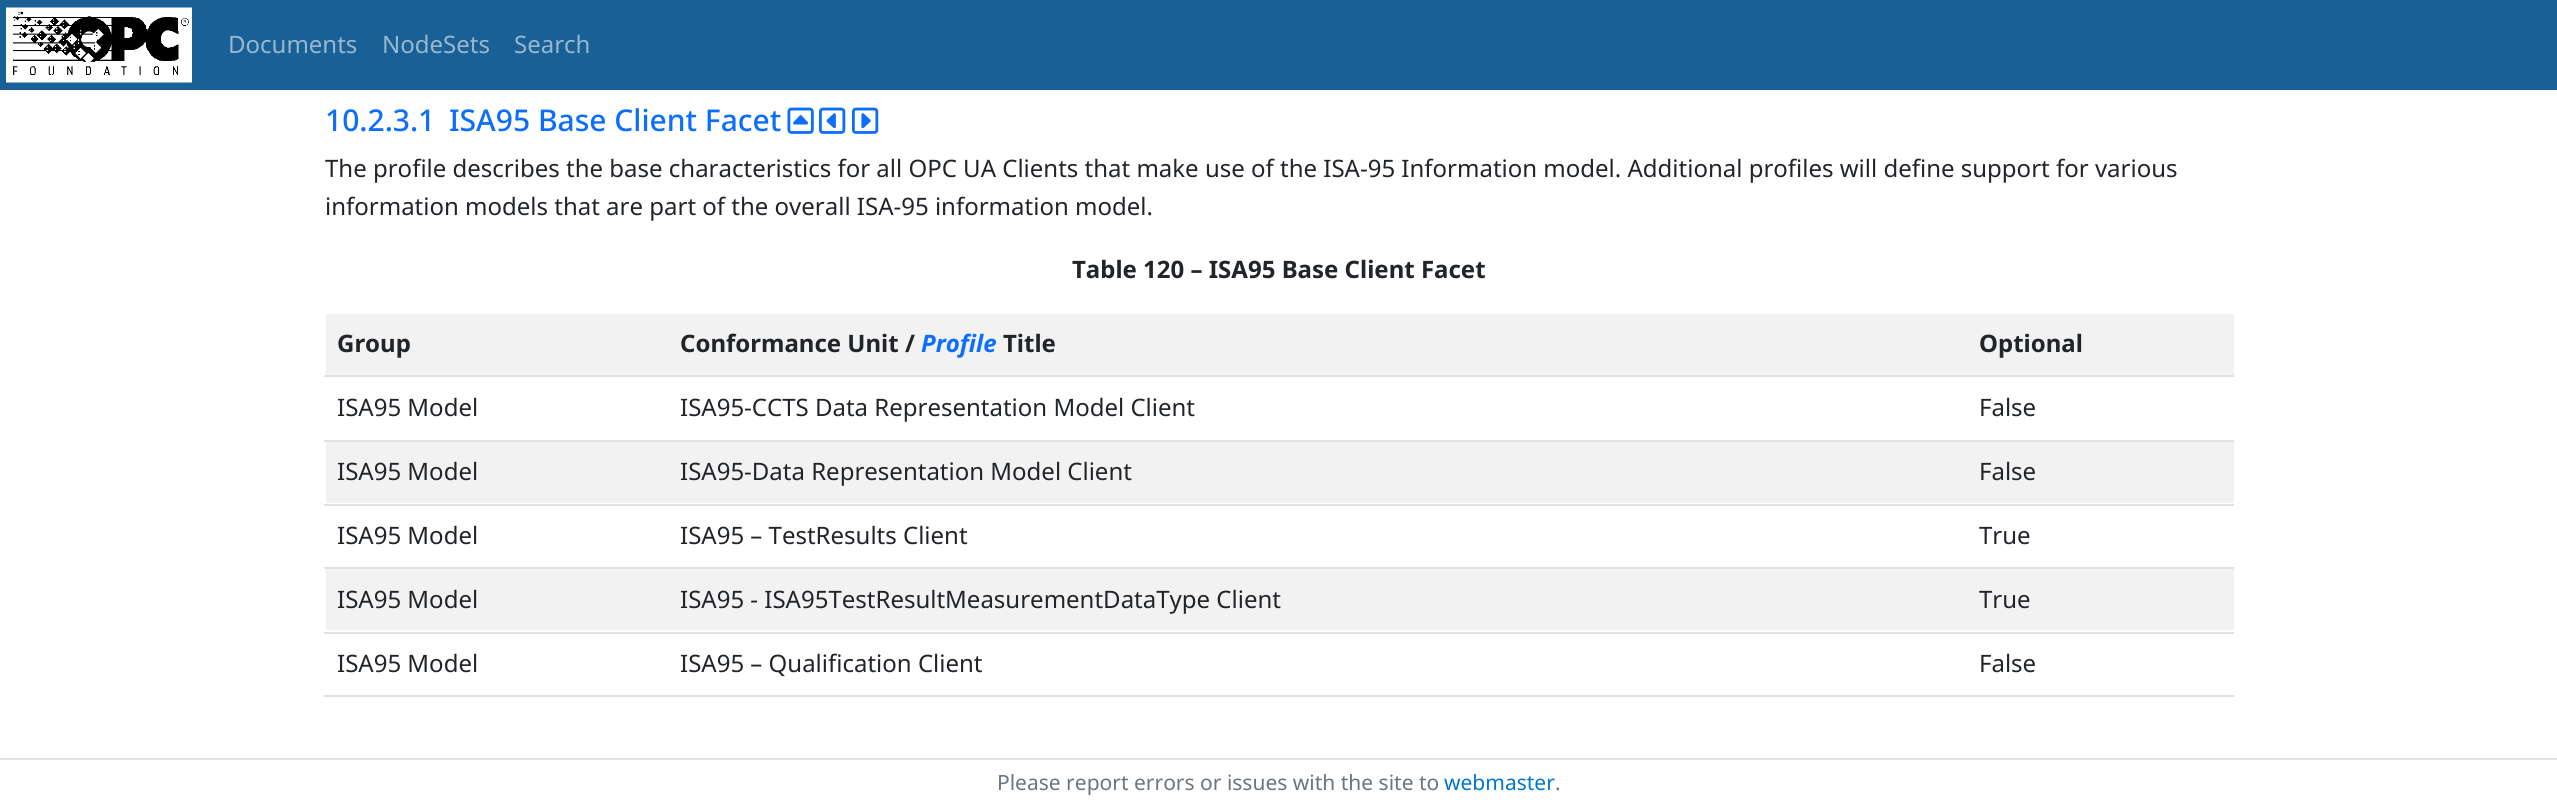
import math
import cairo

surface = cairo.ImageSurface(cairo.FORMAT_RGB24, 2557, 810)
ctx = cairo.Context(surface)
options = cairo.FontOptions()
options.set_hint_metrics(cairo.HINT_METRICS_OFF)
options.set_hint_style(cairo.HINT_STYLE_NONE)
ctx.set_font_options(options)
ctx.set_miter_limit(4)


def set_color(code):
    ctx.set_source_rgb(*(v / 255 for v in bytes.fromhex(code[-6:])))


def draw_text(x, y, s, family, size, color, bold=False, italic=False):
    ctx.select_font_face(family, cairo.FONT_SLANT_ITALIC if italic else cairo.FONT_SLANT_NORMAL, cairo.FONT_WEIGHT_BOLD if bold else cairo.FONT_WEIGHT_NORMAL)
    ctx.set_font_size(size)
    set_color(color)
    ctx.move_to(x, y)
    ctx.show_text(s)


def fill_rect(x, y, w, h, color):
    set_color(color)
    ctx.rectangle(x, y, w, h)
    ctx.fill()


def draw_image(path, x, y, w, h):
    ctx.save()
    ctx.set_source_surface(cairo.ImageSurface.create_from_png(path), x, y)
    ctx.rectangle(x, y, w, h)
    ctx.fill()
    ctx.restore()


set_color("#ffffff")
ctx.paint()
fill_rect(0, 0, 2557, 90, "#196096")
draw_image("assets/img1.png", 6, 7, 186, 76)
draw_text(228, 53, "Documents", "Noto Sans", 24, "#98b7d0")
draw_text(382, 53, "NodeSets", "Noto Sans", 24, "#98b7d0")
draw_text(514, 53, "Search", "Noto Sans", 24, "#98b7d0")
draw_text(325, 131, "10.2.3.1", "Noto Sans Medium", 30, "#0d6efd")
draw_text(449, 131, "ISA95 Base Client Facet", "Noto Sans Medium", 30, "#0d6efd")
draw_image("assets/img2.png", 787, 107, 27, 27)
draw_image("assets/img3.png", 819, 107, 27, 27)
draw_image("assets/img4.png", 852, 107, 27, 27)
draw_text(325, 177, "The profile describes the base characteristics for all OPC UA Clients that make use of the ISA-95 Information model. Additional profiles will define support for various", "Noto Sans", 24, "#212529")
draw_text(325, 215, "information models that are part of the overall ISA-95 information model.", "Noto Sans", 24, "#212529")
draw_text(1072, 278, "Table 120 – ISA95 Base Client Facet", "Noto Sans", 24, "#212529", bold=True)
fill_rect(326, 314, 1908, 61, "#f2f2f2")
draw_text(337, 352, "Group", "Noto Sans", 24, "#212529", bold=True)
draw_text(680, 352, "Conformance Unit /", "Noto Sans", 24, "#212529", bold=True)
draw_text(921, 352, "Profile", "Noto Sans", 24, "#0d6efd", bold=True, italic=True)
draw_text(1003, 352, "Title", "Noto Sans", 24, "#212529", bold=True)
fill_rect(324, 375, 1910, 2, "#dee2e6")
draw_text(1979, 352, "Optional", "Noto Sans", 24, "#212529", bold=True)
draw_text(337, 416, "ISA95 Model", "Noto Sans", 24, "#212529")
draw_text(680, 416, "ISA95-CCTS Data Representation Model Client", "Noto Sans", 24, "#212529")
fill_rect(324, 440, 1910, 2, "#dee2e6")
draw_text(1979, 416, "False", "Noto Sans", 24, "#212529")
fill_rect(326, 442, 1908, 61, "#f2f2f2")
draw_text(337, 480, "ISA95 Model", "Noto Sans", 24, "#212529")
draw_text(680, 480, "ISA95-Data Representation Model Client", "Noto Sans", 24, "#212529")
fill_rect(324, 504, 1910, 2, "#dee2e6")
draw_text(1979, 480, "False", "Noto Sans", 24, "#212529")
draw_text(337, 544, "ISA95 Model", "Noto Sans", 24, "#212529")
draw_text(680, 544, "ISA95 – TestResults Client", "Noto Sans", 24, "#212529")
fill_rect(324, 567, 1910, 2, "#dee2e6")
draw_text(1979, 544, "True", "Noto Sans", 24, "#212529")
fill_rect(326, 569, 1908, 61, "#f2f2f2")
draw_text(337, 608, "ISA95 Model", "Noto Sans", 24, "#212529")
draw_text(680, 608, "ISA95 - ISA95TestResultMeasurementDataType Client", "Noto Sans", 24, "#212529")
fill_rect(324, 632, 1910, 2, "#dee2e6")
draw_text(1979, 608, "True", "Noto Sans", 24, "#212529")
draw_text(337, 672, "ISA95 Model", "Noto Sans", 24, "#212529")
draw_text(680, 672, "ISA95 – Qualification Client", "Noto Sans", 24, "#212529")
fill_rect(324, 695, 1910, 2, "#dee2e6")
draw_text(1979, 672, "False", "Noto Sans", 24, "#212529")
fill_rect(0, 758, 2557, 2, "#dee2e6")
draw_text(997, 790, "Please report errors or issues with the site to", "Noto Sans", 21, "#6c757d")
draw_text(1444, 790, "webmaster", "Noto Sans", 21, "#0077cc")
draw_text(1555, 790, ".", "Noto Sans", 21, "#6c757d")
surface.write_to_png("output.png")
